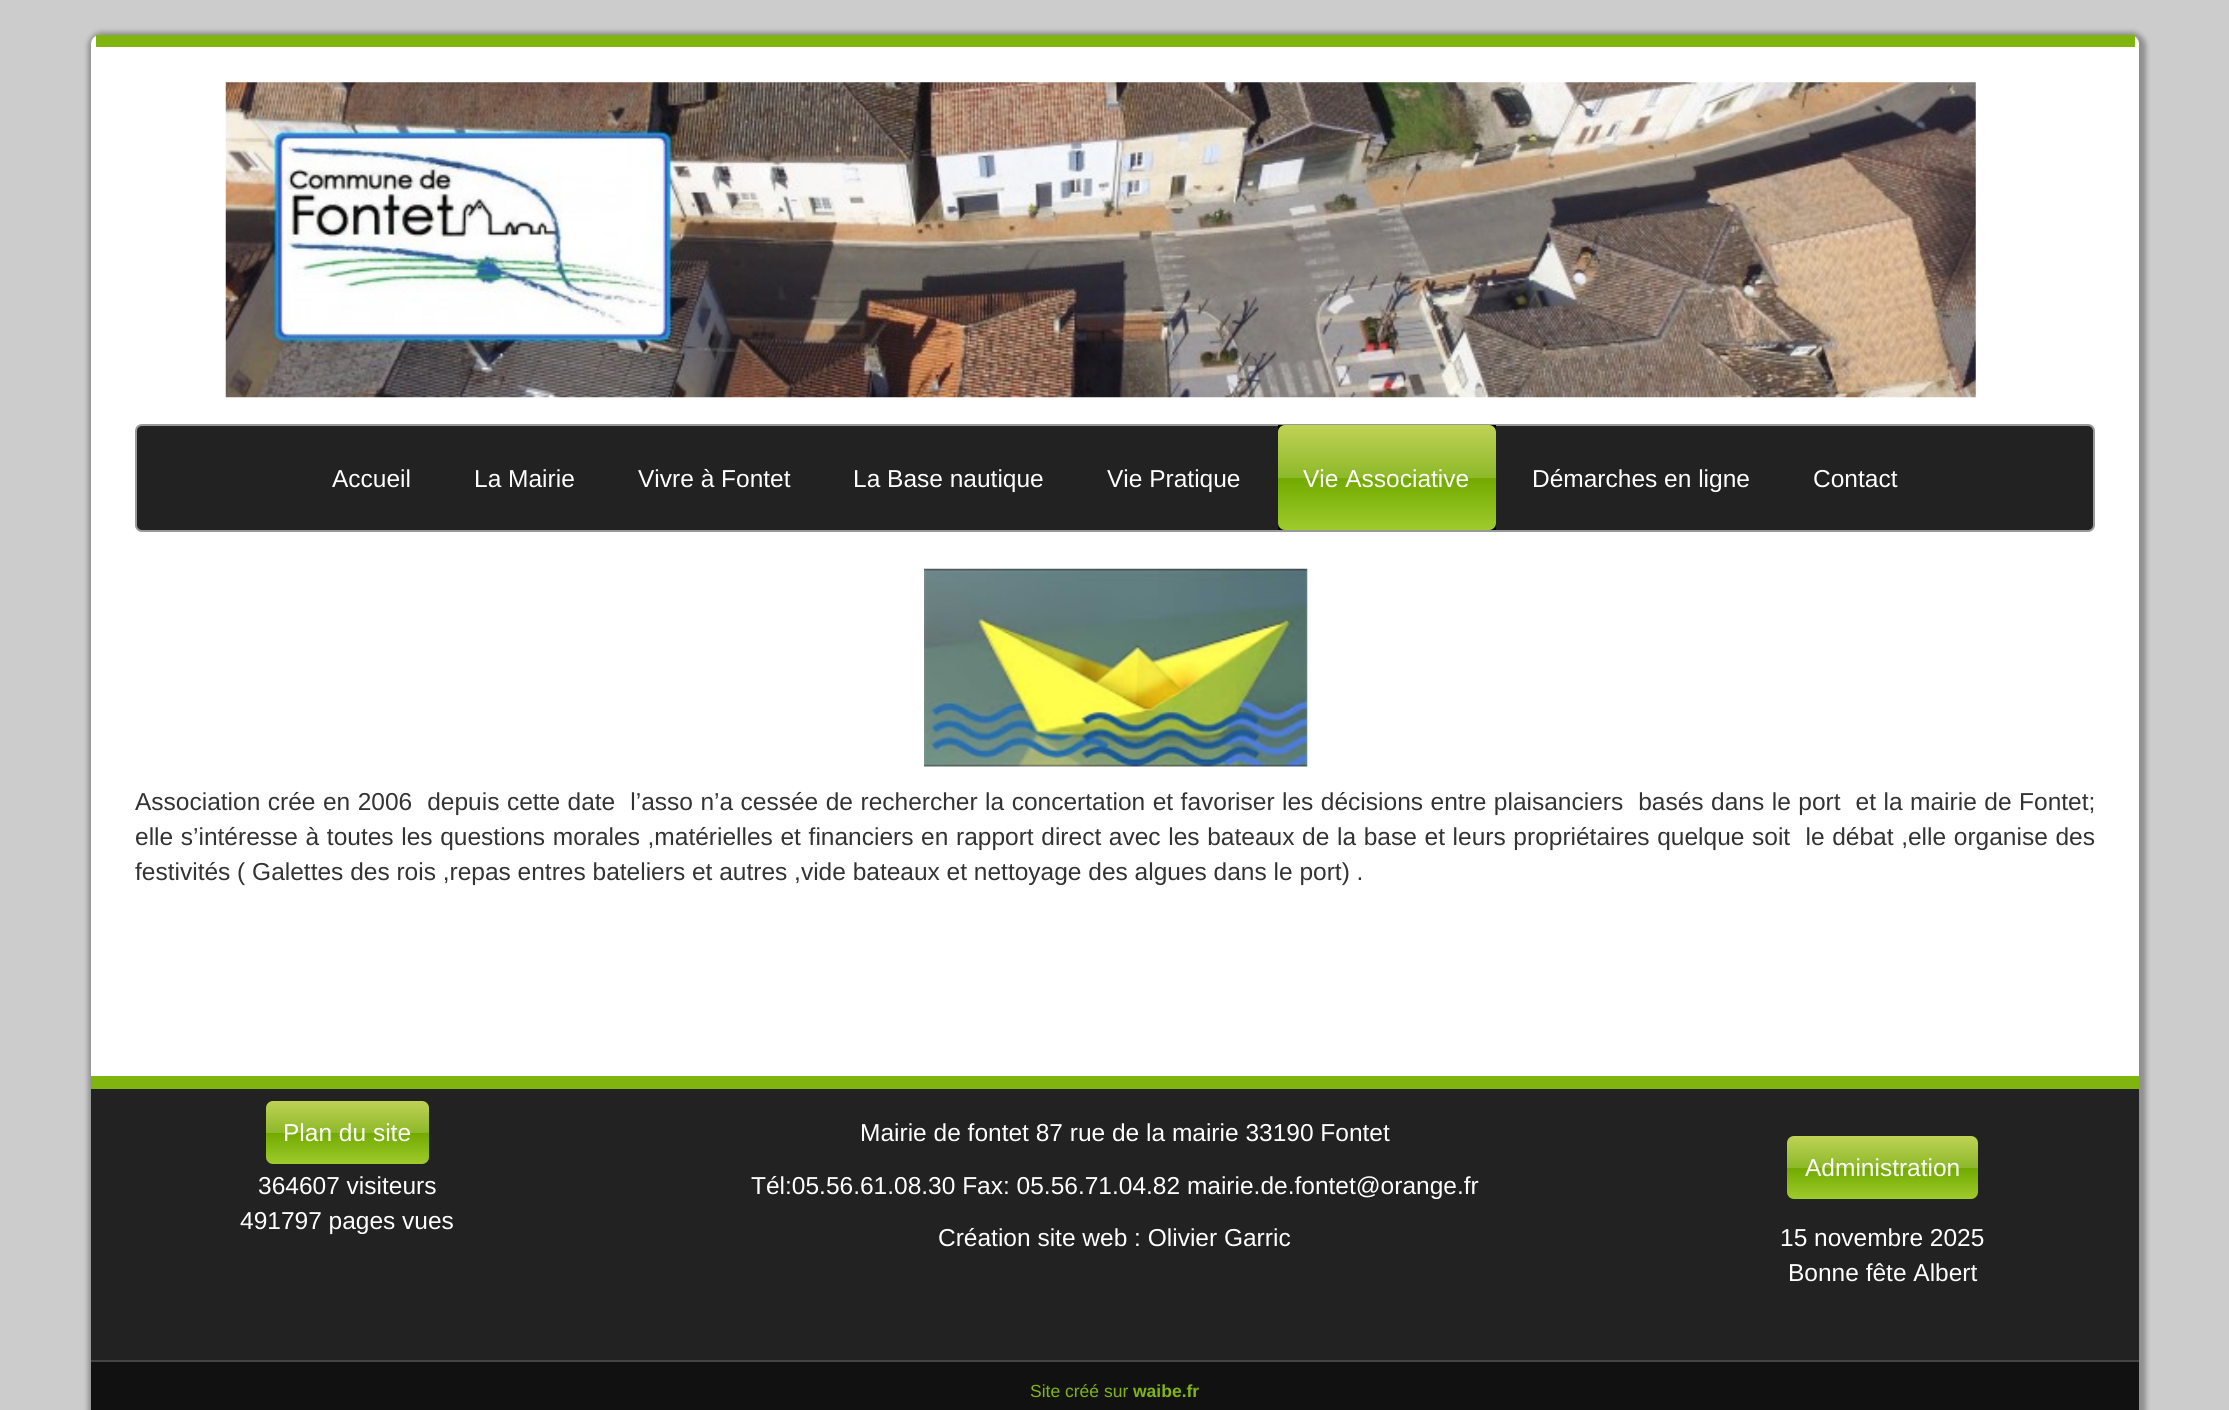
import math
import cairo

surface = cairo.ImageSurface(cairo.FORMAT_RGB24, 2229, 1410)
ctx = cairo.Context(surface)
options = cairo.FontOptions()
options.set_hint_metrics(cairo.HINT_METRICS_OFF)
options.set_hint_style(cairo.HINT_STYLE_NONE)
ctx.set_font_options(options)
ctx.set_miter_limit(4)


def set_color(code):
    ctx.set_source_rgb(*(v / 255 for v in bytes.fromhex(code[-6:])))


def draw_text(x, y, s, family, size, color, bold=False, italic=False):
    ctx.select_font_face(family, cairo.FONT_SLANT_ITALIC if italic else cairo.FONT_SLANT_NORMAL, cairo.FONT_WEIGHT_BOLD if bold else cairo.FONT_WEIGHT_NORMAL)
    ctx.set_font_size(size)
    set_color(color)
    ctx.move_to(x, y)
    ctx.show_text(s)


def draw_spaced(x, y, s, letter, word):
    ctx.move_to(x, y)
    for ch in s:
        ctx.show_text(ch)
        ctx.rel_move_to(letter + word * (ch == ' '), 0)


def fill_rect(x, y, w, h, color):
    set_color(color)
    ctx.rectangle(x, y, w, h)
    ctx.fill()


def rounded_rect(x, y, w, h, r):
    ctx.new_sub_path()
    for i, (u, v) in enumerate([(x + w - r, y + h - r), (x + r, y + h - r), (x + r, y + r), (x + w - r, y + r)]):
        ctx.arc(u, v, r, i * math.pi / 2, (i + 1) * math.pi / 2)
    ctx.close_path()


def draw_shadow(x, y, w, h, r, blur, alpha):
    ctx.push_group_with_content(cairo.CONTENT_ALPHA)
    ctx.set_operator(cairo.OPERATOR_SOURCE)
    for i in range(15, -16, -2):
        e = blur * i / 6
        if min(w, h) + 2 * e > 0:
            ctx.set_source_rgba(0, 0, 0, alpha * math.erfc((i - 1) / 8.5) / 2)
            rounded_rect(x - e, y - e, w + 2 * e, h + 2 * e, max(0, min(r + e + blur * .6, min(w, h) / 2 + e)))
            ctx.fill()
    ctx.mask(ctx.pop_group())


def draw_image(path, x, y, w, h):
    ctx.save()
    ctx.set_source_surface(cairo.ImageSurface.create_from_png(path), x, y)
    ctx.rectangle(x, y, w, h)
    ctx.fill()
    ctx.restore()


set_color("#cccccc")
ctx.paint()
set_color("#000000")
draw_shadow(88, 32, 2058, 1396, 14, 2.5, 0.3)
set_color("#ffffff")
rounded_rect(91, 35, 2048, 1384, 9)
ctx.fill()
fill_rect(96, 35, 2039, 12, "#80b50f")
draw_image("assets/img1.png", 225, 82, 1751, 316)
set_color("#222222")
rounded_rect(136, 425, 1958, 106, 6)
ctx.fill_preserve()
set_color("#999999")
ctx.stroke()
draw_text(332, 487, "Accueil", "Liberation Sans", 24.5, "#ffffff")
draw_text(474, 487, "La Mairie", "Liberation Sans", 24.5, "#ffffff")
draw_text(638, 487, "Vivre à Fontet", "Liberation Sans", 24.5, "#ffffff")
draw_text(853, 487, "La Base nautique", "Liberation Sans", 24.5, "#ffffff")
draw_text(1107, 487, "Vie Pratique", "Liberation Sans", 24.5, "#ffffff")
fill_rect(1278, 425, 218, 105, "#000000")
gradient = cairo.LinearGradient(1387, 425, 1387, 530)
gradient.add_color_stop_rgba(0, 0.749, 0.824, 0.333, 1)
gradient.add_color_stop_rgba(0.5, 0.557, 0.725, 0.165, 1)
gradient.add_color_stop_rgba(0.51, 0.447, 0.667, 0, 1)
gradient.add_color_stop_rgba(1, 0.62, 0.796, 0.176, 1)
ctx.set_source(gradient)
rounded_rect(1278, 425, 218, 105, 7)
ctx.fill()
draw_text(1303, 487, "Vie Associative", "Liberation Sans", 24.5, "#ffffff")
draw_text(1532, 487, "Démarches en ligne", "Liberation Sans", 24.5, "#ffffff")
draw_text(1813, 487, "Contact", "Liberation Sans", 24.5, "#ffffff")
draw_image("assets/img2.png", 924, 568, 384, 199)
set_color("#333333")
draw_spaced(135, 810, "Association crée en 2006  depuis cette date  l’asso n’a cessée de rechercher la concertation et favoriser les décisions entre plaisanciers  basés dans le port  et la mairie de Fontet;", 0, 0.7)
draw_spaced(135, 845, "elle s’intéresse à toutes les questions morales ,matérielles et financiers en rapport direct avec les bateaux de la base et leurs propriétaires quelque soit  le débat ,elle organise des", 0, 0.85)
draw_text(135, 880, "festivités ( Galettes des rois ,repas entres bateliers et autres ,vide bateaux et nettoyage des algues dans le port) .", "Liberation Sans", 24.5, "#333333")
fill_rect(91, 1089, 2048, 271, "#222222")
fill_rect(91, 1076, 2048, 13, "#80b50f")
gradient = cairo.LinearGradient(347, 1101, 347, 1164)
gradient.add_color_stop_rgba(0, 0.749, 0.824, 0.333, 1)
gradient.add_color_stop_rgba(0.5, 0.557, 0.725, 0.165, 1)
gradient.add_color_stop_rgba(0.51, 0.447, 0.667, 0, 1)
gradient.add_color_stop_rgba(1, 0.62, 0.796, 0.176, 1)
ctx.set_source(gradient)
rounded_rect(266, 1101, 163, 63, 7)
ctx.fill()
draw_text(283, 1141, "Plan du site", "Liberation Sans", 24.5, "#ffffff")
draw_text(258, 1194, "364607 visiteurs", "Liberation Sans", 24.5, "#ffffff")
draw_text(240, 1229, "491797 pages vues", "Liberation Sans", 24.5, "#ffffff")
draw_text(860, 1141, "Mairie de fontet 87 rue de la mairie 33190 Fontet", "Liberation Sans", 24.5, "#ffffff")
draw_text(751, 1194, "Tél:05.56.61.08.30 Fax: 05.56.71.04.82 mairie.de.fontet@orange.fr", "Liberation Sans", 24.5, "#ffffff")
draw_text(938, 1246, "Création site web : Olivier Garric", "Liberation Sans", 24.5, "#ffffff")
gradient = cairo.LinearGradient(1882, 1136, 1882, 1199)
gradient.add_color_stop_rgba(0, 0.749, 0.824, 0.333, 1)
gradient.add_color_stop_rgba(0.5, 0.557, 0.725, 0.165, 1)
gradient.add_color_stop_rgba(0.51, 0.447, 0.667, 0, 1)
gradient.add_color_stop_rgba(1, 0.62, 0.796, 0.176, 1)
ctx.set_source(gradient)
rounded_rect(1787, 1136, 191, 63, 7)
ctx.fill()
draw_text(1805, 1176, "Administration", "Liberation Sans", 24.5, "#ffffff")
draw_text(1780, 1246, "15 novembre 2025", "Liberation Sans", 24.5, "#ffffff")
draw_text(1788, 1281, "Bonne fête Albert", "Liberation Sans", 24.5, "#ffffff")
fill_rect(91, 1362, 2048, 48, "#111111")
fill_rect(91, 1360, 2048, 2, "#444444")
draw_text(1030, 1397, "Site créé sur", "Liberation Sans", 17.5, "#80b50f")
draw_text(1133, 1397, "waibe.fr", "Liberation Sans", 17.5, "#80b50f", bold=True)
surface.write_to_png("output.png")
